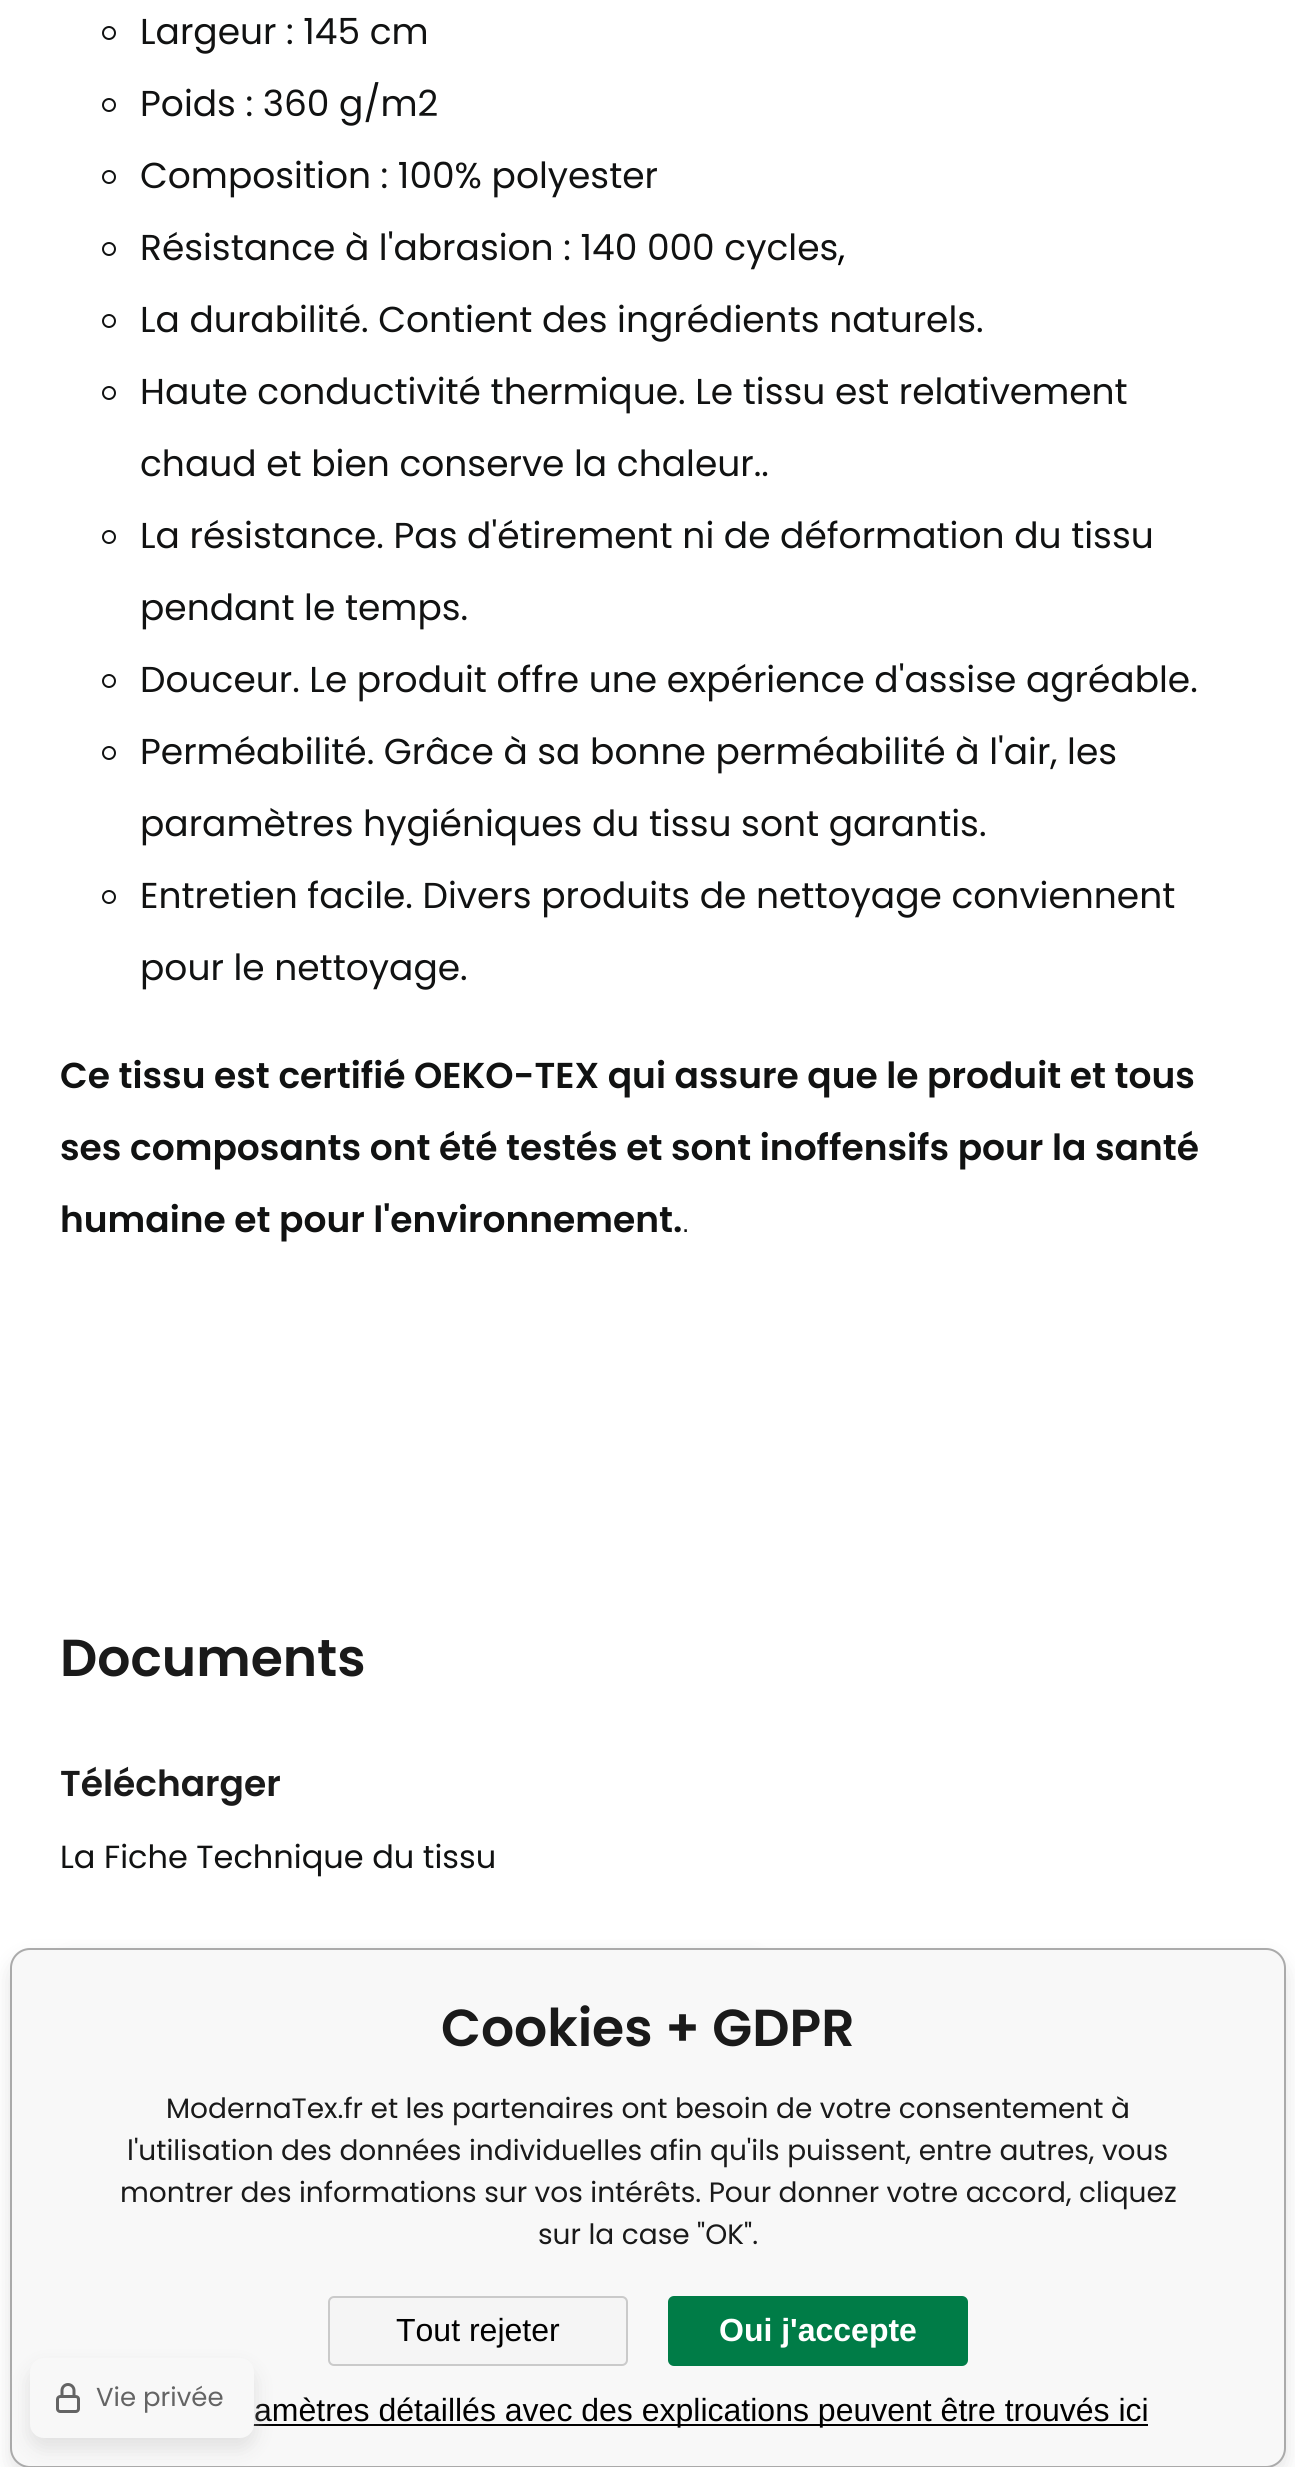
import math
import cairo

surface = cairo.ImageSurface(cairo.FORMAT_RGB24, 1295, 2467)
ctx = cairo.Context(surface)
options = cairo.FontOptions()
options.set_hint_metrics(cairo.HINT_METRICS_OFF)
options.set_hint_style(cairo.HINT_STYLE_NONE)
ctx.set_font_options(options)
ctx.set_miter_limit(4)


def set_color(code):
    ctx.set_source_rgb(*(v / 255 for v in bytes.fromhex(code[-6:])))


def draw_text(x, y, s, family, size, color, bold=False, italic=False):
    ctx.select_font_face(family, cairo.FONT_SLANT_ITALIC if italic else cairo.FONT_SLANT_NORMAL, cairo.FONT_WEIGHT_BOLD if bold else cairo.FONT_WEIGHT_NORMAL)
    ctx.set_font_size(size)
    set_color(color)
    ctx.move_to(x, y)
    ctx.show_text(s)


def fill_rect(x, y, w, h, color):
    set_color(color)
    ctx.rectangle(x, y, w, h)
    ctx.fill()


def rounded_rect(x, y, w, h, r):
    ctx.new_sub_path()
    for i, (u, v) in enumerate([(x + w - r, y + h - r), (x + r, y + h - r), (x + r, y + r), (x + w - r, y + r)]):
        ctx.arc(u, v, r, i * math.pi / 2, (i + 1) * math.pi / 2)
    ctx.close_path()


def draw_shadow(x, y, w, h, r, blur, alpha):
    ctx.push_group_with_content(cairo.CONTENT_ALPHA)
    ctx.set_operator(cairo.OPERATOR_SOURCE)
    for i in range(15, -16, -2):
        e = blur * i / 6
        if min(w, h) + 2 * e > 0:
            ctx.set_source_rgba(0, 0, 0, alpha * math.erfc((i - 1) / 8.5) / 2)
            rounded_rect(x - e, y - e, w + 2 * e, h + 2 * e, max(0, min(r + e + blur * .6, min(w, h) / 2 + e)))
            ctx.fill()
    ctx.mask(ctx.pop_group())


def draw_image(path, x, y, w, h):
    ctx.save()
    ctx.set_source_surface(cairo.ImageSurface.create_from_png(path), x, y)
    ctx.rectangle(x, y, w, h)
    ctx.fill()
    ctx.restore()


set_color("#ffffff")
ctx.paint()
ctx.arc(109, 33, 6, 0, 2 * math.pi)
set_color("#111212")
ctx.stroke()
draw_text(140, 44, "Largeur : 145 cm", "Poppins", 36, "#111212")
ctx.new_path()
ctx.arc(109, 105, 6, 0, 2 * math.pi)
ctx.stroke()
draw_text(140, 116, "Poids : 360 g/m2", "Poppins", 36, "#111212")
ctx.new_path()
ctx.arc(109, 177, 6, 0, 2 * math.pi)
ctx.stroke()
draw_text(140, 188, "Composition : 100% polyester", "Poppins", 36, "#111212")
ctx.new_path()
ctx.arc(109, 249, 6, 0, 2 * math.pi)
ctx.stroke()
draw_text(140, 260, "Résistance à l'abrasion : 140 000 cycles", "Poppins", 36, "#111212")
draw_text(838, 260, ",", "Poppins", 36, "#000000")
ctx.new_path()
ctx.arc(109, 321, 6, 0, 2 * math.pi)
set_color("#111212")
ctx.stroke()
draw_text(140, 332, "La durabilité. Contient des ingrédients naturels.", "Poppins", 36, "#111212")
ctx.new_path()
ctx.arc(109, 393, 6, 0, 2 * math.pi)
ctx.stroke()
draw_text(140, 404, "Haute conductivité thermique. Le tissu est relativement", "Poppins", 36, "#111212")
draw_text(140, 476, "chaud et bien conserve la chaleur..", "Poppins", 36, "#111212")
ctx.new_path()
ctx.arc(109, 537, 6, 0, 2 * math.pi)
ctx.stroke()
draw_text(140, 548, "La résistance. Pas d'étirement ni de déformation du tissu", "Poppins", 36, "#111212")
draw_text(140, 620, "pendant le temps.", "Poppins", 36, "#111212")
ctx.new_path()
ctx.arc(109, 681, 6, 0, 2 * math.pi)
ctx.stroke()
draw_text(140, 692, "Douceur. Le produit offre une expérience d'assise agréable.", "Poppins", 36, "#111212")
ctx.new_path()
ctx.arc(109, 753, 6, 0, 2 * math.pi)
ctx.stroke()
draw_text(140, 764, "Perméabilité. Grâce à sa bonne perméabilité à l'air, les", "Poppins", 36, "#111212")
draw_text(140, 836, "paramètres hygiéniques du tissu sont garantis.", "Poppins", 36, "#111212")
ctx.new_path()
ctx.arc(109, 897, 6, 0, 2 * math.pi)
ctx.stroke()
draw_text(140, 908, "Entretien facile. Divers produits de nettoyage conviennent", "Poppins", 36, "#111212")
draw_text(140, 980, "pour le nettoyage.", "Poppins", 36, "#111212")
draw_text(60, 1088, "Ce tissu est certifié OEKO-TEX qui assure que le produit et tous", "Poppins SemiBold", 36, "#111212")
draw_text(60, 1160, "ses composants ont été testés et sont inoffensifs pour la santé", "Poppins SemiBold", 36, "#111212")
draw_text(60, 1232, "humaine et pour l'environnement.", "Poppins SemiBold", 36, "#111212")
draw_text(682, 1232, ".", "Liberation Sans", 26, "#111212")
draw_text(60, 1676, "Documents", "Poppins SemiBold", 52, "#1a1a1a")
draw_text(60, 1796, "Télécharger", "Poppins SemiBold", 36, "#1a1a1a")
draw_text(60, 1868, "La Fiche Technique du tissu", "Poppins", 32, "#111212")
set_color("#8697a7")
draw_shadow(60, 1958, 704, 108, 12, 12, 0.16)
set_color("#c8c8c8")
draw_shadow(10, 1958, 1276, 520, 20, 10, 0.5)
set_color("#f8f8f8")
rounded_rect(11, 1949, 1274, 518, 19)
ctx.fill_preserve()
set_color("#aaaaaa")
ctx.stroke()
draw_text(441, 2046, "Cookies + GDPR", "Poppins SemiBold", 52, "#1a1a1a")
draw_text(166, 2118, "ModernaTex.fr et les partenaires ont besoin de votre consentement à", "Poppins", 28, "#1a1a1a")
draw_text(127, 2160, "l'utilisation des données individuelles afin qu'ils puissent, entre autres, vous", "Poppins", 28, "#1a1a1a")
draw_text(120, 2202, "montrer des informations sur vos intérêts. Pour donner votre accord, cliquez", "Poppins", 28, "#1a1a1a")
draw_text(538, 2244, "sur la case \"OK\".", "Poppins", 28, "#1a1a1a")
set_color("#f5f5f5")
rounded_rect(329, 2297, 298, 68, 5)
ctx.fill_preserve()
set_color("#cacaca")
ctx.stroke()
draw_text(396, 2341, "Tout rejeter", "Liberation Sans", 32, "#000000")
set_color("#007c47")
rounded_rect(669, 2297, 298, 68, 5)
ctx.fill_preserve()
ctx.stroke()
draw_text(719, 2341, "Oui j'accepte", "Liberation Sans", 32, "#ffffff", bold=True)
fill_rect(253, 2424, 895, 2, "#000000")
draw_text(254, 2421, "amètres détaillés avec des explications peuvent être trouvés ici", "Liberation Sans", 32, "#000000")
set_color("#c8c8c8")
draw_shadow(30, 2368, 224, 80, 14, 10, 0.5)
set_color("#f8f8f8")
rounded_rect(30, 2358, 224, 80, 14)
ctx.fill()
draw_image("assets/img1.png", 56, 2383, 24, 30)
draw_text(96, 2406, "Vie privée", "Poppins", 26, "#646464")
surface.write_to_png("output.png")
